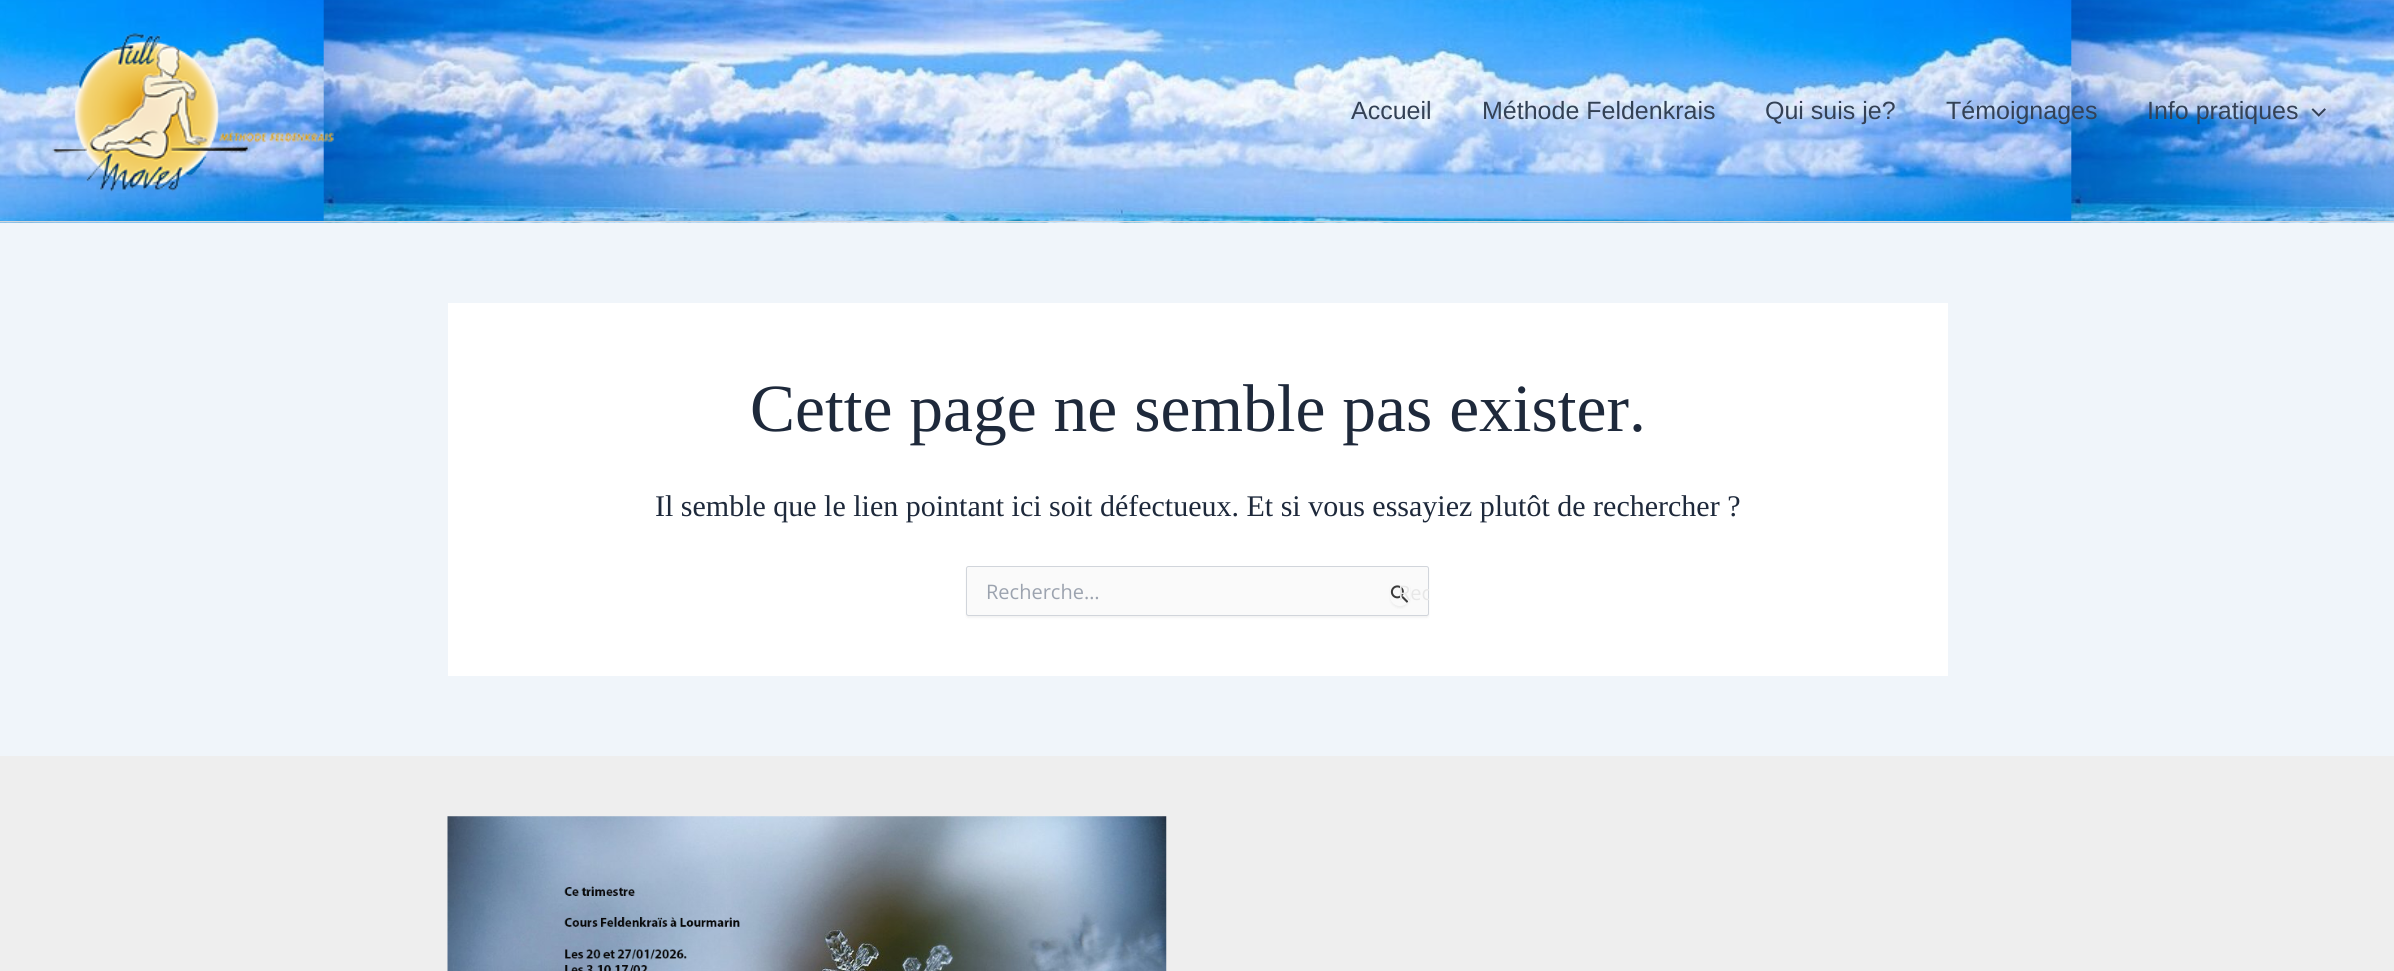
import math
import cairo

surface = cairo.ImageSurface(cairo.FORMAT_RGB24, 2394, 971)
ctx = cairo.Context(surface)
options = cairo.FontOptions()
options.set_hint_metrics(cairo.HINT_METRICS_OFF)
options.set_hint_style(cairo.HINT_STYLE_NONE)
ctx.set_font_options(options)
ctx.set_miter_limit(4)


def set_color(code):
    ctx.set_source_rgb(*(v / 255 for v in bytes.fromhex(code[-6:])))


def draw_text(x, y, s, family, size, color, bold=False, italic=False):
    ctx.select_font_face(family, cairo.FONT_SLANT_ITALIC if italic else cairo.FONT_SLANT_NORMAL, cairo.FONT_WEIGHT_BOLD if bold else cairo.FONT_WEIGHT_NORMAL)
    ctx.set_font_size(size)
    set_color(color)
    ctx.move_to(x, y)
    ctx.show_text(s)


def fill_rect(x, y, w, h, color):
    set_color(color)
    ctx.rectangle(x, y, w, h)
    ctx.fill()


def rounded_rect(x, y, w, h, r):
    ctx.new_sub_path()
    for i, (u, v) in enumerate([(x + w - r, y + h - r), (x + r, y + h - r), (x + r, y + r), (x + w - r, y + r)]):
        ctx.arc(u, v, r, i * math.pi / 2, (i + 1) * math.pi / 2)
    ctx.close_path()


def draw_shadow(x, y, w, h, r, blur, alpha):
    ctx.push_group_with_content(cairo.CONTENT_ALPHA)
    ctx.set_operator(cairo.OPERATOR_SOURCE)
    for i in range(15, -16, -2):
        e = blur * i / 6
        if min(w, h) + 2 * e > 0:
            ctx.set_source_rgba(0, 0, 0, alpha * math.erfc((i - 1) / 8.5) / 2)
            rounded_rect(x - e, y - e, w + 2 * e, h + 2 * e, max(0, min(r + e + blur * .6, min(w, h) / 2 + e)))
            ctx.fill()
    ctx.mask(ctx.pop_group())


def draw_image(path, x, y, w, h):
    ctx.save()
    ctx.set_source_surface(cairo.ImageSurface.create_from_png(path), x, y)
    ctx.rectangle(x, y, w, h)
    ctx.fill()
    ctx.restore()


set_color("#f0f5fa")
ctx.paint()
fill_rect(0, 222, 2394, 1, "#ffffff")
draw_image("assets/img1.png", 0, 0, 2394, 223)
fill_rect(0, 221, 2394, 1, "#d1d5db")
draw_image("assets/img2.png", 52, 33, 283, 159)
draw_text(1351, 119, "Accueil", "Liberation Sans", 25, "#334155")
draw_text(1482, 119, "Méthode Feldenkrais", "Liberation Sans", 25, "#334155")
draw_text(1765, 119, "Qui suis je?", "Liberation Sans", 25, "#334155")
draw_text(1946, 119, "Témoignages", "Liberation Sans", 25, "#334155")
draw_text(2147, 119, "Info pratiques", "Liberation Sans", 25, "#334155")
draw_image("assets/img3.png", 2311, 108, 15, 9)
fill_rect(448, 303, 1500, 373, "#ffffff")
draw_text(750, 431, "Cette page ne semble pas exister.", "Liberation Serif", 67.5, "#1e293b")
draw_text(655, 516, "Il semble que le lien pointant ici soit défectueux. Et si vous essayiez plutôt de rechercher ?", "Liberation Serif", 30, "#1e293b")
set_color("#000000")
draw_shadow(966, 568, 463, 50, 2.5, 1, 0.05)
set_color("#fafafa")
rounded_rect(966.5, 566.5, 462, 49, 2)
ctx.fill_preserve()
set_color("#d1d5db")
ctx.set_line_width(1)
ctx.stroke()
draw_text(986, 599, "Recherche…", "Open Sans", 20, "#9ca3af")
ctx.save()
ctx.set_fill_rule(cairo.FILL_RULE_EVEN_ODD)
ctx.new_path()
ctx.move_to(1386, 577)
ctx.line_to(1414, 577)
ctx.line_to(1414, 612)
ctx.line_to(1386, 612)
ctx.close_path()
ctx.move_to(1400, 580)
ctx.curve_to(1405.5, 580, 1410, 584.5, 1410, 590)
ctx.line_to(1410, 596)
ctx.curve_to(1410, 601.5, 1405.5, 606, 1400, 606)
ctx.curve_to(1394.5, 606, 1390, 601.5, 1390, 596)
ctx.line_to(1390, 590)
ctx.curve_to(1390, 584.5, 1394.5, 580, 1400, 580)
ctx.close_path()
ctx.clip()
set_color("#000000")
draw_shadow(1390, 581, 20, 27, 10, 1, 0.05)
ctx.restore()
draw_image("assets/img4.png", 1390, 585, 18, 18)
ctx.save()
rounded_rect(1373, 566, 56, 53, 2.5)
ctx.clip()
draw_text(1398, 600, "Rec", "Open Sans", 20, "#e7e7e7")
ctx.restore()
fill_rect(0, 756, 2394, 215, "#eeeeee")
draw_image("assets/img5.png", 447, 816, 720, 155)
surface.write_to_png("output.png")
